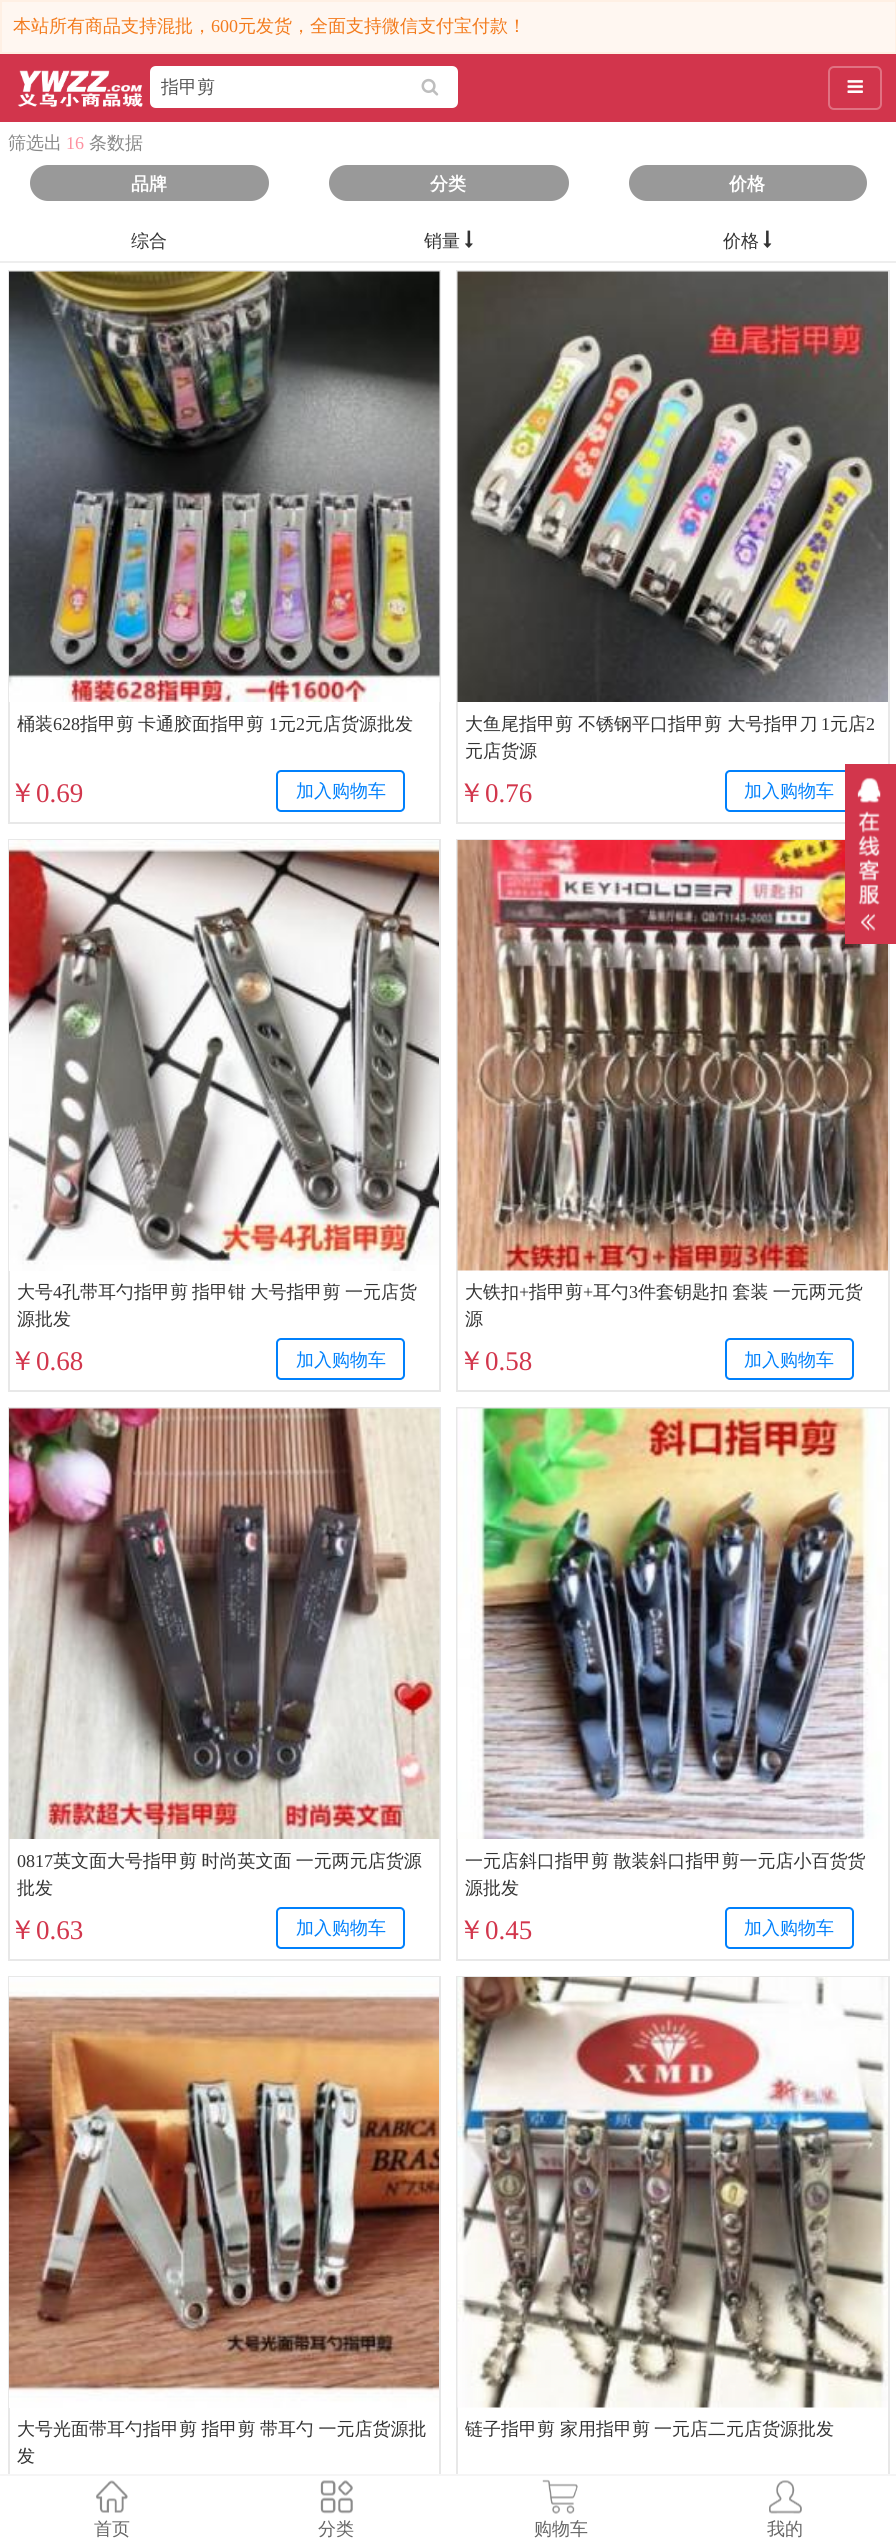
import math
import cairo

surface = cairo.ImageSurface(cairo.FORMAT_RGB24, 896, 2547)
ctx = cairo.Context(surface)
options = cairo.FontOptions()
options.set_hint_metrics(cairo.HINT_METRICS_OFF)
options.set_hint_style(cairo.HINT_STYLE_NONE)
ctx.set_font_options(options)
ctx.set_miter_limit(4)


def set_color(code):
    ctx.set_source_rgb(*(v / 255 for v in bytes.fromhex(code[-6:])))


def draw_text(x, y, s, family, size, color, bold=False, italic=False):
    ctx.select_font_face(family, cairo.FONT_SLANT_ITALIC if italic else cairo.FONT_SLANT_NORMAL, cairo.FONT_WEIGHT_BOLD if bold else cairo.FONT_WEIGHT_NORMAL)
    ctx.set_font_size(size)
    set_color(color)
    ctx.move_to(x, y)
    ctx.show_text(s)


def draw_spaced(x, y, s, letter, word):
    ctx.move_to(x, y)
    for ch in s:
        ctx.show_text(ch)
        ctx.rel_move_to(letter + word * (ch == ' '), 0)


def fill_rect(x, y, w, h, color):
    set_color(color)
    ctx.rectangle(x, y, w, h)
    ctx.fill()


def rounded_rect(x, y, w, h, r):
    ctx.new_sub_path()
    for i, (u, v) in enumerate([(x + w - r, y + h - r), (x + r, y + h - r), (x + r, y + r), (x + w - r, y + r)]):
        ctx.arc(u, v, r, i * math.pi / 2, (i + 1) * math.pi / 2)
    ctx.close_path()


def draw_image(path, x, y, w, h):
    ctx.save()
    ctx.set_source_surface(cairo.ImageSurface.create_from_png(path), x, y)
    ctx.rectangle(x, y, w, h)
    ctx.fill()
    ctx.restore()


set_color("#ffffff")
ctx.paint()
set_color("#fff7f1")
ctx.rectangle(1, 1, 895, 52)
ctx.fill_preserve()
set_color("#fff0e4")
ctx.stroke()
draw_text(13, 32, "本站所有商品支持混批，", "WenQuanYi Zen Hei Medium", 18, "#f37b1d")
draw_text(211, 32, "600", "Liberation Serif", 18, "#f37b1d")
draw_text(238, 32, "元发货，全面支持微信支付宝付款！", "WenQuanYi Zen Hei Medium", 18, "#f37b1d")
fill_rect(0, 54, 896, 68, "#d2354c")
draw_image("assets/img1.png", 17, 70, 126, 38)
set_color("#ffffff")
ctx.new_path()
ctx.move_to(403, 67)
ctx.line_to(452, 67)
ctx.curve_to(455, 67, 457, 69, 457, 72)
ctx.line_to(457, 102)
ctx.curve_to(457, 105, 455, 107, 452, 107)
ctx.line_to(403, 107)
ctx.close_path()
ctx.fill_preserve()
ctx.stroke()
ctx.new_path()
ctx.move_to(156, 67)
ctx.line_to(403, 67)
ctx.line_to(403, 107)
ctx.line_to(156, 107)
ctx.curve_to(153, 107, 151, 105, 151, 102)
ctx.line_to(151, 72)
ctx.curve_to(151, 69, 153, 67, 156, 67)
ctx.close_path()
ctx.fill_preserve()
ctx.stroke()
draw_text(161, 93, "指甲剪", "WenQuanYi Zen Hei Medium", 18, "#555555")
draw_image("assets/img2.png", 421, 78, 18, 18)
rounded_rect(829, 67, 52, 42, 5)
set_color("#e07282")
ctx.stroke()
draw_image("assets/img3.png", 847, 80, 16, 13)
draw_text(8, 149, "筛选出", "WenQuanYi Zen Hei Medium", 18, "#888888")
draw_text(66, 149, "16", "Liberation Serif", 18, "#fe90a0")
draw_text(89, 149, "条数据", "WenQuanYi Zen Hei Medium", 18, "#888888")
set_color("#999999")
rounded_rect(30, 165, 239, 36, 18)
ctx.fill()
draw_text(131, 190, "品牌", "WenQuanYi Zen Hei", 18, "#ffffff", bold=True)
set_color("#999999")
rounded_rect(329, 165, 240, 36, 18)
ctx.fill()
draw_text(430, 190, "分类", "WenQuanYi Zen Hei", 18, "#ffffff", bold=True)
set_color("#999999")
rounded_rect(629, 165, 238, 36, 18)
ctx.fill()
draw_text(729, 190, "价格", "WenQuanYi Zen Hei", 18, "#ffffff", bold=True)
fill_rect(0, 261, 896, 2, "#eeeeee")
draw_text(131, 247, "综合", "WenQuanYi Zen Hei Medium", 18, "#333333")
draw_text(424, 247, "销量", "WenQuanYi Zen Hei Medium", 18, "#333333")
draw_image("assets/img4.png", 465, 230, 8, 18)
draw_text(723, 247, "价格", "WenQuanYi Zen Hei Medium", 18, "#333333")
draw_image("assets/img5.png", 763, 230, 9, 18)
ctx.rectangle(9, 271, 431, 552)
set_color("#e8e8e8")
ctx.stroke()
draw_image("assets/img6.png", 9, 271, 431, 431)
draw_text(17, 730, "桶装", "WenQuanYi Zen Hei Medium", 18, "#333333")
draw_text(53, 730, "628", "Liberation Serif", 18, "#333333")
draw_text(80, 730, "指甲剪", "WenQuanYi Zen Hei Medium", 18, "#333333")
draw_text(138, 730, "卡通胶面指甲剪", "WenQuanYi Zen Hei Medium", 18, "#333333")
draw_text(269, 730, "1", "Liberation Serif", 18, "#333333")
draw_text(278, 730, "元", "WenQuanYi Zen Hei Medium", 18, "#333333")
draw_text(296, 730, "2", "Liberation Serif", 18, "#333333")
draw_text(305, 730, "元店货源批发", "WenQuanYi Zen Hei Medium", 18, "#333333")
draw_text(9, 802, "￥", "WenQuanYi Zen Hei Medium", 27, "#d2364c")
draw_text(36, 802, "0.69", "Liberation Serif", 27, "#d2364c")
rounded_rect(277, 771, 127, 40, 4)
set_color("#0080fc")
ctx.stroke()
draw_text(296, 797, "加入购物车", "WenQuanYi Zen Hei Medium", 18, "#0080fc")
ctx.rectangle(457, 271, 432, 552)
set_color("#e8e8e8")
ctx.stroke()
draw_image("assets/img7.png", 457, 271, 431, 431)
draw_text(465, 730, "大鱼尾指甲剪", "WenQuanYi Zen Hei Medium", 18, "#333333")
draw_text(578, 730, "不锈钢平口指甲剪 大号指甲刀", "WenQuanYi Zen Hei Medium", 18, "#333333")
draw_text(821, 730, "1", "Liberation Serif", 18, "#333333")
draw_text(830, 730, "元店", "WenQuanYi Zen Hei Medium", 18, "#333333")
draw_text(866, 730, "2", "Liberation Serif", 18, "#333333")
draw_text(465, 757, "元店货源", "WenQuanYi Zen Hei Medium", 18, "#333333")
draw_text(458, 802, "￥", "WenQuanYi Zen Hei Medium", 27, "#d2364c")
draw_text(485, 802, "0.76", "Liberation Serif", 27, "#d2364c")
rounded_rect(726, 771, 127, 40, 4)
set_color("#0080fc")
ctx.stroke()
draw_text(744, 797, "加入购物车", "WenQuanYi Zen Hei Medium", 18, "#0080fc")
ctx.rectangle(9, 840, 431, 551)
set_color("#e8e8e8")
ctx.stroke()
draw_image("assets/img8.png", 9, 840, 430, 431)
draw_text(17, 1298, "大号", "WenQuanYi Zen Hei Medium", 18, "#333333")
draw_text(53, 1298, "4", "Liberation Serif", 18, "#333333")
draw_text(62, 1298, "孔带耳勺指甲剪", "WenQuanYi Zen Hei Medium", 18, "#333333")
draw_spaced(192, 1298, "指甲钳 大号指甲剪", 0, -1)
draw_text(345, 1298, "一元店货", "WenQuanYi Zen Hei Medium", 18, "#333333")
draw_text(17, 1325, "源批发", "WenQuanYi Zen Hei Medium", 18, "#333333")
draw_text(9, 1370, "￥", "WenQuanYi Zen Hei Medium", 27, "#d2364c")
draw_text(36, 1370, "0.68", "Liberation Serif", 27, "#d2364c")
rounded_rect(277, 1339, 127, 40, 4)
set_color("#0080fc")
ctx.stroke()
draw_text(296, 1366, "加入购物车", "WenQuanYi Zen Hei Medium", 18, "#0080fc")
ctx.rectangle(457, 840, 432, 551)
set_color("#e8e8e8")
ctx.stroke()
draw_image("assets/img9.png", 457, 840, 431, 431)
draw_text(465, 1298, "大铁扣", "WenQuanYi Zen Hei Medium", 18, "#333333")
draw_text(519, 1298, "+", "Liberation Serif", 18, "#333333")
draw_text(529, 1298, "指甲剪", "WenQuanYi Zen Hei Medium", 18, "#333333")
draw_text(583, 1298, "+", "Liberation Serif", 18, "#333333")
draw_text(593, 1298, "耳勺", "WenQuanYi Zen Hei Medium", 18, "#333333")
draw_text(629, 1298, "3", "Liberation Serif", 18, "#333333")
ctx.select_font_face("WenQuanYi Zen Hei Medium")
draw_spaced(638, 1298, "件套钥匙扣 套装 一元两元货", 0, -1)
draw_text(465, 1325, "源", "WenQuanYi Zen Hei Medium", 18, "#333333")
draw_text(458, 1370, "￥", "WenQuanYi Zen Hei Medium", 27, "#d2364c")
draw_text(485, 1370, "0.58", "Liberation Serif", 27, "#d2364c")
rounded_rect(726, 1339, 127, 40, 4)
set_color("#0080fc")
ctx.stroke()
draw_text(744, 1366, "加入购物车", "WenQuanYi Zen Hei Medium", 18, "#0080fc")
ctx.rectangle(9, 1408, 431, 552)
set_color("#e8e8e8")
ctx.stroke()
draw_image("assets/img10.png", 9, 1408, 431, 431)
draw_text(17, 1867, "0817", "Liberation Serif", 18, "#333333")
ctx.select_font_face("WenQuanYi Zen Hei Medium")
draw_spaced(53, 1867, "英文面大号指甲剪 时尚英文面 一元两元店货源", 0, -1)
draw_text(17, 1894, "批发", "WenQuanYi Zen Hei Medium", 18, "#333333")
draw_text(9, 1939, "￥", "WenQuanYi Zen Hei Medium", 27, "#d2364c")
draw_text(36, 1939, "0.63", "Liberation Serif", 27, "#d2364c")
rounded_rect(277, 1908, 127, 40, 4)
set_color("#0080fc")
ctx.stroke()
draw_text(296, 1934, "加入购物车", "WenQuanYi Zen Hei Medium", 18, "#0080fc")
ctx.rectangle(457, 1408, 432, 552)
set_color("#e8e8e8")
ctx.stroke()
draw_image("assets/img11.png", 457, 1408, 431, 431)
set_color("#333333")
draw_spaced(465, 1867, "一元店斜口指甲剪 散装斜口指甲剪一元店小百货货", 0, -1)
draw_text(465, 1894, "源批发", "WenQuanYi Zen Hei Medium", 18, "#333333")
draw_text(458, 1939, "￥", "WenQuanYi Zen Hei Medium", 27, "#d2364c")
draw_text(485, 1939, "0.45", "Liberation Serif", 27, "#d2364c")
rounded_rect(726, 1908, 127, 40, 4)
set_color("#0080fc")
ctx.stroke()
draw_text(744, 1934, "加入购物车", "WenQuanYi Zen Hei Medium", 18, "#0080fc")
ctx.rectangle(9, 1977, 431, 551)
set_color("#e8e8e8")
ctx.stroke()
draw_image("assets/img12.png", 9, 1977, 430, 431)
set_color("#333333")
draw_spaced(17, 2435, "大号光面带耳勺指甲剪 指甲剪", 0, -1)
draw_spaced(260, 2435, "带耳勺 一元店货源批", 0, -1)
draw_text(17, 2462, "发", "WenQuanYi Zen Hei Medium", 18, "#333333")
ctx.rectangle(457, 1977, 432, 551)
set_color("#e8e8e8")
ctx.stroke()
draw_image("assets/img13.png", 457, 1977, 431, 431)
draw_text(465, 2435, "链子指甲剪", "WenQuanYi Zen Hei Medium", 18, "#333333")
draw_text(560, 2435, "家用指甲剪", "WenQuanYi Zen Hei Medium", 18, "#333333")
draw_text(654, 2435, "一元店二元店货源批发", "WenQuanYi Zen Hei Medium", 18, "#333333")
fill_rect(845, 764, 51, 180, "#d2364c")
draw_image("assets/img14.png", 857, 777, 24, 154)
fill_rect(8, 2476, 882, 53, "#ffffff")
fill_rect(0, 2474, 896, 2, "#f5f5f5")
draw_image("assets/img15.png", 96, 2480, 32, 33)
draw_text(94, 2535, "首页", "WenQuanYi Zen Hei Medium", 18, "#666666")
draw_image("assets/img16.png", 320, 2480, 33, 34)
draw_text(318, 2535, "分类", "WenQuanYi Zen Hei Medium", 18, "#666666")
draw_image("assets/img17.png", 542, 2479, 36, 35)
draw_text(534, 2535, "购物车", "WenQuanYi Zen Hei Medium", 18, "#666666")
draw_image("assets/img18.png", 769, 2480, 33, 34)
draw_text(767, 2535, "我的", "WenQuanYi Zen Hei Medium", 18, "#666666")
surface.write_to_png("output.png")
